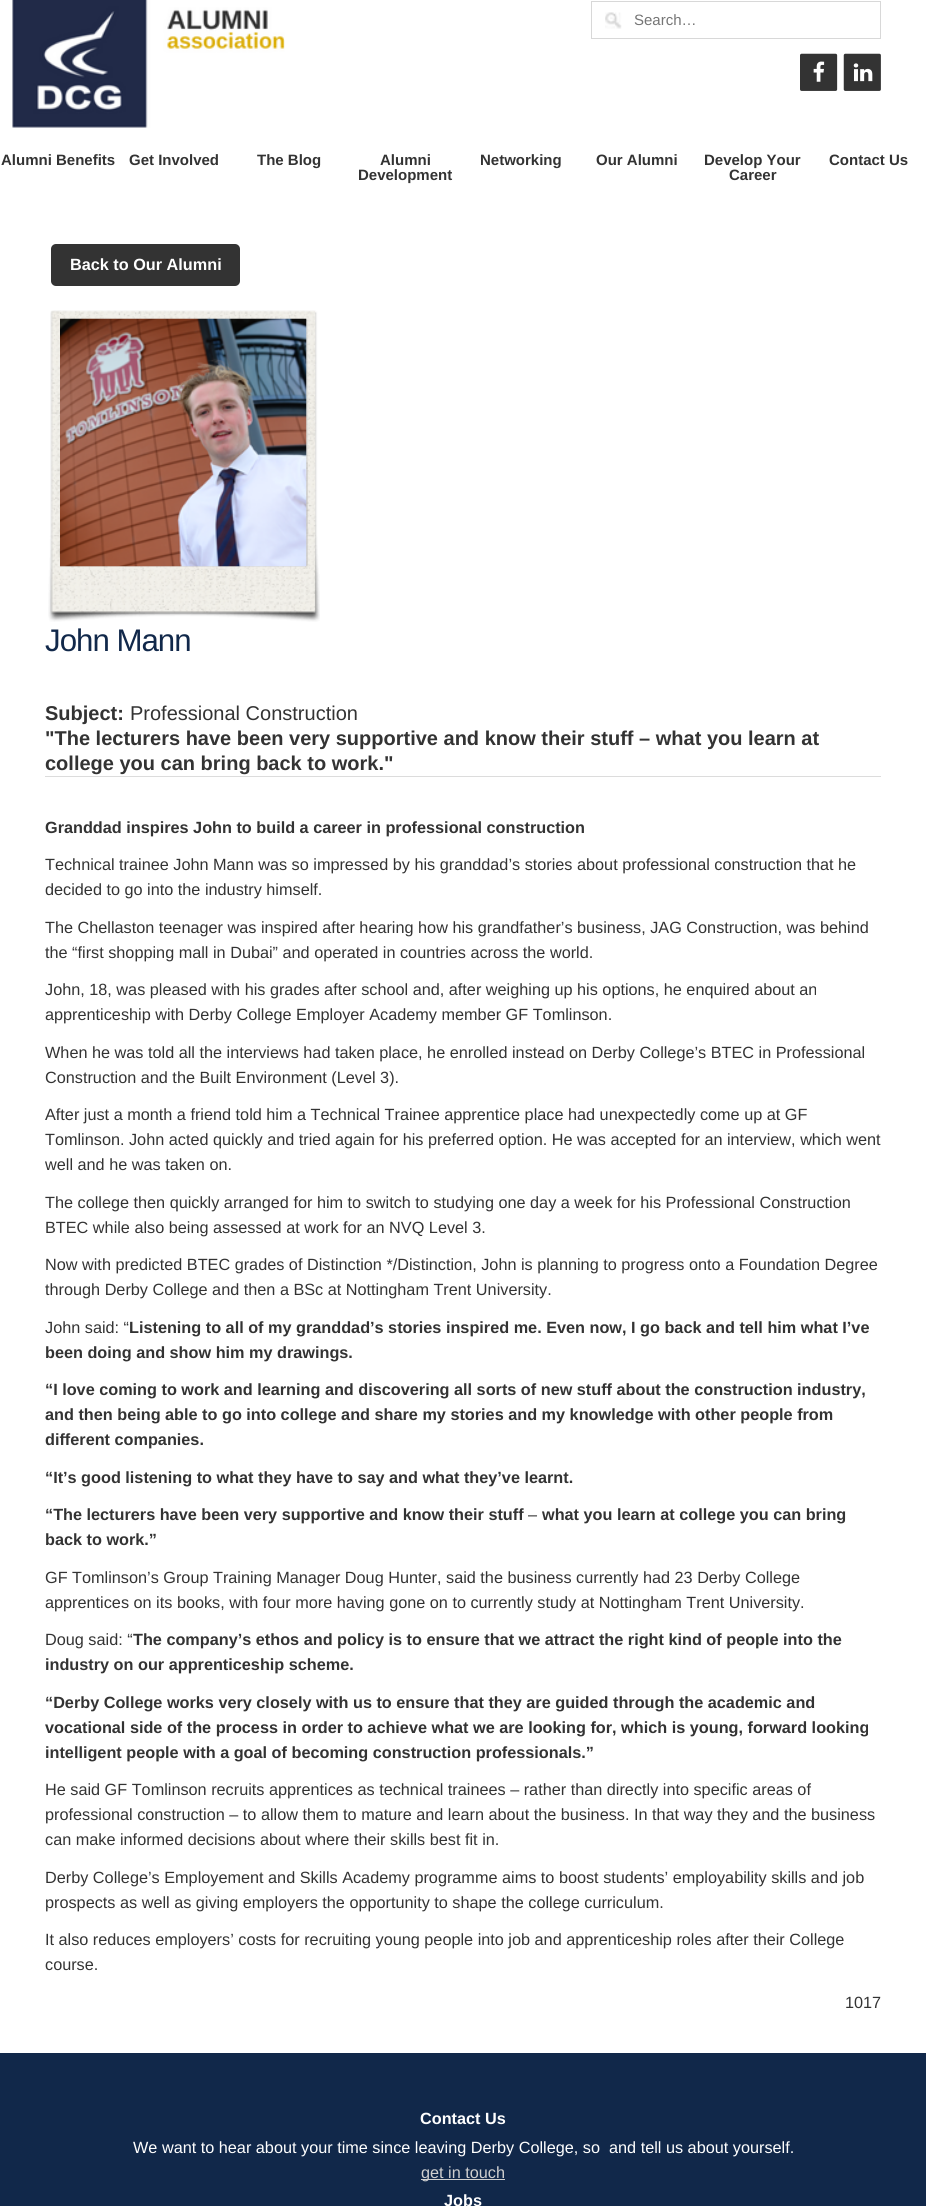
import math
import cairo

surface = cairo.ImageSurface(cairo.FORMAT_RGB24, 926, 2206)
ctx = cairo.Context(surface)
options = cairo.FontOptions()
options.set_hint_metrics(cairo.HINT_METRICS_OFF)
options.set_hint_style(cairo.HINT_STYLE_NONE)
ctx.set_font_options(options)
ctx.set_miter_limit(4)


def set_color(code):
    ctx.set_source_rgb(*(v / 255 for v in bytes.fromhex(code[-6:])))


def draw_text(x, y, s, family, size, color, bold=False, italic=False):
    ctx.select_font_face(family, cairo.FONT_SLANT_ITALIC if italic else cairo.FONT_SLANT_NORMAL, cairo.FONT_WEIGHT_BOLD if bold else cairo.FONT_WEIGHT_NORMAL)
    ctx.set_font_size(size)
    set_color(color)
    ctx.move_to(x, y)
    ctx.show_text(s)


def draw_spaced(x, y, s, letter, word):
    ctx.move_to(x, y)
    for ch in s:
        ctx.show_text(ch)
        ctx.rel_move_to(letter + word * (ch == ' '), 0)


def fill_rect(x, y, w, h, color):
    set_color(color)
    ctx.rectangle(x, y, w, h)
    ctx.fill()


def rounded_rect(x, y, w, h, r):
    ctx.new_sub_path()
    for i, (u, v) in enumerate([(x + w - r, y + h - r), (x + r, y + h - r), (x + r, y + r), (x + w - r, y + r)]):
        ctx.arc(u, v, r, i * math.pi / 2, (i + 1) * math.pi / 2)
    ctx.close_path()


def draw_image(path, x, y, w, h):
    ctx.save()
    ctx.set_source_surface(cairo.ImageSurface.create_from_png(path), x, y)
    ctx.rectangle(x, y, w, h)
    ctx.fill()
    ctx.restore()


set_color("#ffffff")
ctx.paint()
draw_image("assets/img1.png", 12, 0, 273, 128)
draw_image("assets/img2.png", 605, 12, 17, 17)
ctx.rectangle(591.5, 1.5, 289, 37)
set_color("#d8d8d8")
ctx.set_line_width(1)
ctx.stroke()
draw_text(634, 25, "Search…", "Liberation Sans", 15, "#757575")
draw_image("assets/img3.png", 800, 53, 38, 38)
draw_image("assets/img4.png", 813, 61, 12, 21)
draw_image("assets/img5.png", 843, 53, 38, 38)
draw_image("assets/img6.png", 853, 63, 20, 19)
draw_text(1, 165, "Alumni Benefits", "Liberation Sans", 15, "#333333", bold=True)
draw_text(129, 165, "Get Involved", "Liberation Sans", 15, "#333333", bold=True)
draw_text(257, 165, "The Blog", "Liberation Sans", 15, "#333333", bold=True)
draw_text(380, 165, "Alumni", "Liberation Sans", 15, "#333333", bold=True)
draw_text(358, 180, "Development", "Liberation Sans", 15, "#333333", bold=True)
draw_text(480, 165, "Networking", "Liberation Sans", 15, "#333333", bold=True)
draw_text(596, 165, "Our Alumni", "Liberation Sans", 15, "#333333", bold=True)
draw_text(704, 165, "Develop Your", "Liberation Sans", 15, "#333333", bold=True)
draw_text(729, 180, "Career", "Liberation Sans", 15, "#333333", bold=True)
draw_text(829, 165, "Contact Us", "Liberation Sans", 15, "#333333", bold=True)
rounded_rect(51, 244, 189, 42, 5)
ctx.fill()
draw_text(70, 270, "Back to Our Alumni", "Liberation Sans", 16.25, "#ffffff", bold=True)
draw_image("assets/img7.png", 48, 310, 272, 312)
draw_image("assets/img8.png", 60, 318, 247, 249)
ctx.select_font_face("Liberation Sans")
ctx.set_font_size(31.25)
set_color("#11284a")
draw_spaced(45, 651, "John Mann", -1, 0)
draw_text(45, 720, "Subject:", "Liberation Sans", 20, "#333333", bold=True)
draw_text(130, 720, "Professional Construction", "Liberation Sans", 20, "#333333")
draw_text(45, 745, "\"The lecturers have been very supportive and know their stuff – what you learn at", "Liberation Sans", 20, "#333333", bold=True)
draw_text(45, 770, "college you can bring back to work.\"", "Liberation Sans", 20, "#333333", bold=True)
fill_rect(45, 776, 836, 1, "#dcdcdc")
draw_text(45, 833, "Granddad inspires John to build a career in professional construction", "Liberation Sans", 16.25, "#333333", bold=True)
draw_text(45, 870, "Technical trainee John Mann was so impressed by his granddad’s stories about professional construction that he", "Liberation Sans", 16.25, "#333333")
draw_text(45, 895, "decided to go into the industry himself.", "Liberation Sans", 16.25, "#333333")
draw_text(45, 933, "The Chellaston teenager was inspired after hearing how his grandfather’s business, JAG Construction, was behind", "Liberation Sans", 16.25, "#333333")
draw_text(45, 958, "the “first shopping mall in Dubai” and operated in countries across the world.", "Liberation Sans", 16.25, "#333333")
draw_text(45, 995, "John, 18, was pleased with his grades after school and, after weighing up his options, he enquired about an", "Liberation Sans", 16.25, "#333333")
draw_text(45, 1020, "apprenticeship with Derby College Employer Academy member GF Tomlinson.", "Liberation Sans", 16.25, "#333333")
draw_text(45, 1058, "When he was told all the interviews had taken place, he enrolled instead on Derby College’s BTEC in Professional", "Liberation Sans", 16.25, "#333333")
draw_text(45, 1083, "Construction and the Built Environment (Level 3).", "Liberation Sans", 16.25, "#333333")
draw_text(45, 1120, "After just a month a friend told him a Technical Trainee apprentice place had unexpectedly come up at GF", "Liberation Sans", 16.25, "#333333")
draw_text(45, 1145, "Tomlinson. John acted quickly and tried again for his preferred option. He was accepted for an interview, which went", "Liberation Sans", 16.25, "#333333")
draw_text(45, 1170, "well and he was taken on.", "Liberation Sans", 16.25, "#333333")
draw_text(45, 1208, "The college then quickly arranged for him to switch to studying one day a week for his Professional Construction", "Liberation Sans", 16.25, "#333333")
draw_text(45, 1233, "BTEC while also being assessed at work for an NVQ Level 3.", "Liberation Sans", 16.25, "#333333")
draw_text(45, 1270, "Now with predicted BTEC grades of Distinction */Distinction, John is planning to progress onto a Foundation Degree", "Liberation Sans", 16.25, "#333333")
draw_text(45, 1295, "through Derby College and then a BSc at Nottingham Trent University.", "Liberation Sans", 16.25, "#333333")
draw_text(45, 1333, "John said: “", "Liberation Sans", 16.25, "#333333")
draw_text(129, 1333, "Listening to all of my granddad’s stories inspired me. Even now, I go back and tell him what I’ve", "Liberation Sans", 16.25, "#333333", bold=True)
draw_text(45, 1358, "been doing and show him my drawings.", "Liberation Sans", 16.25, "#333333", bold=True)
draw_text(45, 1395, "“I love coming to work and learning and discovering all sorts of new stuff about the construction industry,", "Liberation Sans", 16.25, "#333333", bold=True)
draw_text(45, 1420, "and then being able to go into college and share my stories and my knowledge with other people from", "Liberation Sans", 16.25, "#333333", bold=True)
draw_text(45, 1445, "different companies.", "Liberation Sans", 16.25, "#333333", bold=True)
draw_text(45, 1483, "“It’s good listening to what they have to say and what they’ve learnt.", "Liberation Sans", 16.25, "#333333", bold=True)
draw_text(45, 1520, "“The lecturers have been very supportive and know their stuff", "Liberation Sans", 16.25, "#333333", bold=True)
draw_text(528, 1520, "–", "Liberation Sans", 16.25, "#333333")
draw_text(542, 1520, "what you learn at college you can bring", "Liberation Sans", 16.25, "#333333", bold=True)
draw_text(45, 1545, "back to work.”", "Liberation Sans", 16.25, "#333333", bold=True)
draw_text(45, 1583, "GF Tomlinson’s Group Training Manager Doug Hunter, said the business currently had 23 Derby College", "Liberation Sans", 16.25, "#333333")
draw_text(45, 1608, "apprentices on its books, with four more having gone on to currently study at Nottingham Trent University.", "Liberation Sans", 16.25, "#333333")
draw_text(45, 1645, "Doug said: “", "Liberation Sans", 16.25, "#333333")
draw_text(133, 1645, "The company’s ethos and policy is to ensure that we attract the right kind of people into the", "Liberation Sans", 16.25, "#333333", bold=True)
draw_text(45, 1670, "industry on our apprenticeship scheme.", "Liberation Sans", 16.25, "#333333", bold=True)
draw_text(45, 1708, "“Derby College works very closely with us to ensure that they are guided through the academic and", "Liberation Sans", 16.25, "#333333", bold=True)
draw_text(45, 1733, "vocational side of the process in order to achieve what we are looking for, which is young, forward looking", "Liberation Sans", 16.25, "#333333", bold=True)
draw_text(45, 1758, "intelligent people with a goal of becoming construction professionals.”", "Liberation Sans", 16.25, "#333333", bold=True)
draw_text(45, 1795, "He said GF Tomlinson recruits apprentices as technical trainees – rather than directly into specific areas of", "Liberation Sans", 16.25, "#333333")
draw_text(45, 1820, "professional construction – to allow them to mature and learn about the business. In that way they and the business", "Liberation Sans", 16.25, "#333333")
draw_text(45, 1845, "can make informed decisions about where their skills best fit in.", "Liberation Sans", 16.25, "#333333")
draw_text(45, 1883, "Derby College’s Employement and Skills Academy programme aims to boost students’ employability skills and job", "Liberation Sans", 16.25, "#333333")
draw_text(45, 1908, "prospects as well as giving employers the opportunity to shape the college curriculum.", "Liberation Sans", 16.25, "#333333")
draw_text(45, 1945, "It also reduces employers’ costs for recruiting young people into job and apprenticeship roles after their College", "Liberation Sans", 16.25, "#333333")
draw_text(45, 1970, "course.", "Liberation Sans", 16.25, "#333333")
draw_text(845, 2008, "1017", "Liberation Sans", 16.25, "#333333")
fill_rect(0, 2053, 926, 153, "#11284a")
draw_text(420, 2124, "Contact Us", "Liberation Sans", 16.25, "#ffffff", bold=True)
draw_text(133, 2153, "We want to hear about your time since leaving Derby College, so", "Liberation Sans", 16.25, "#ffffff")
draw_text(609, 2153, "and tell us about yourself.", "Liberation Sans", 16.25, "#ffffff")
fill_rect(421, 2179, 84, 1, "#cfcfcf")
draw_text(421, 2178, "get in touch", "Liberation Sans", 16.25, "#cfcfcf")
draw_text(444, 2206, "Jobs", "Liberation Sans", 16.25, "#ffffff", bold=True)
surface.write_to_png("output.png")
